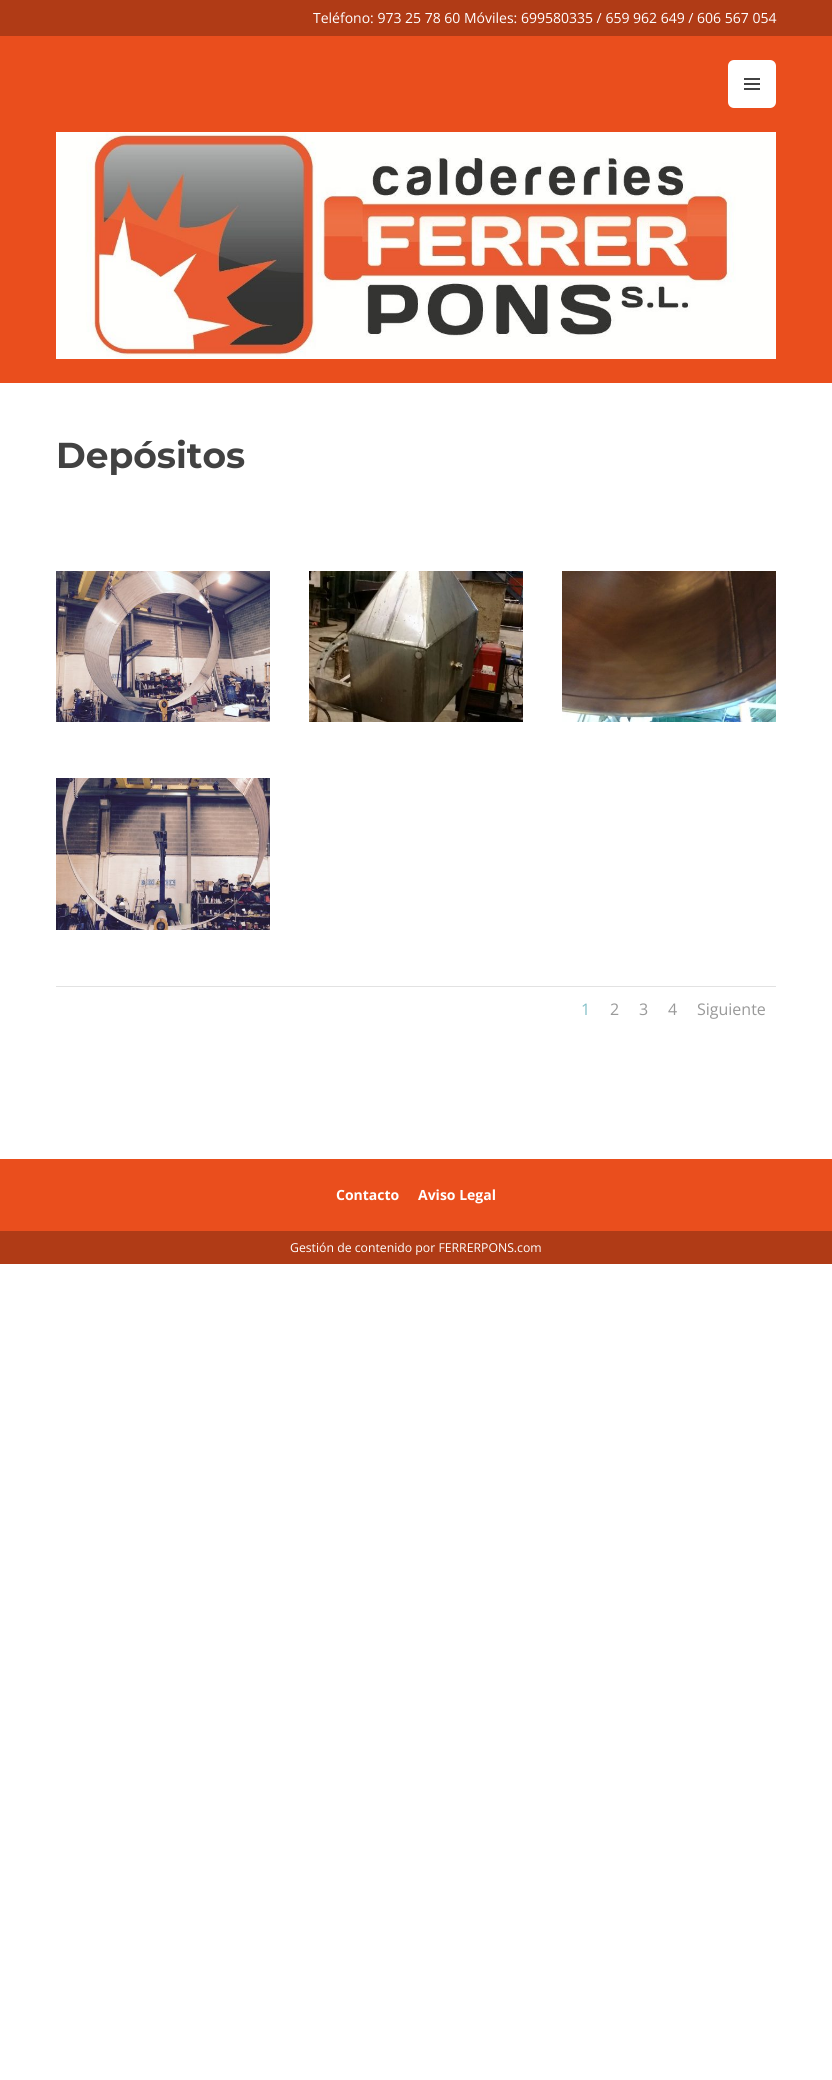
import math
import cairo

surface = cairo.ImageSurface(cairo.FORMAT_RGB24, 832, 2080)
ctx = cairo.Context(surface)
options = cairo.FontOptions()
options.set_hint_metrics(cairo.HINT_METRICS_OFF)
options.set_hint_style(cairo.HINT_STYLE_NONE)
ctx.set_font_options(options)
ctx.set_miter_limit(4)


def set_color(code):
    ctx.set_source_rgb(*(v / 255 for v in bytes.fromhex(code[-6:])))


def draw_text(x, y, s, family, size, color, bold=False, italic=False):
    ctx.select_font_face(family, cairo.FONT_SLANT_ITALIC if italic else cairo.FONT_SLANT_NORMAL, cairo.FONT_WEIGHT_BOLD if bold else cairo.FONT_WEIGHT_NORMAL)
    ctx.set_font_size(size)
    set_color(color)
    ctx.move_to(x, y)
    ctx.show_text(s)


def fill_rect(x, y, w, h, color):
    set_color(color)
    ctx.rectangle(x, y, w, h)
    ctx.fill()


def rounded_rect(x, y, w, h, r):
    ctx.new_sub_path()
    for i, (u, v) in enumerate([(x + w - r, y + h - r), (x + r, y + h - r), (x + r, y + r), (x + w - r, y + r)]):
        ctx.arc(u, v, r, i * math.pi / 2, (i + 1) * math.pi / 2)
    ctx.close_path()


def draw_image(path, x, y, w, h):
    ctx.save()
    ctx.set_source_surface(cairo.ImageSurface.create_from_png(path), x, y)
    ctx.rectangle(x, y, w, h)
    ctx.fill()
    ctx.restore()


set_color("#ffffff")
ctx.paint()
fill_rect(0, 36, 832, 347, "#ea4e1d")
fill_rect(0, 0, 832, 36, "#b03b16")
draw_text(313, 23, "Teléfono: 973 25 78 60 Móviles: 699580335 / 659 962 649 / 606 567 054", "Open Sans", 14, "#ffffff")
rounded_rect(728, 60, 48, 48, 6)
ctx.fill()
draw_image("assets/img1.png", 744, 78, 16, 12)
draw_image("assets/img2.png", 56, 132, 720, 227)
draw_text(56, 468, "Depósitos", "Montserrat", 36, "#424242", bold=True)
draw_image("assets/img3.png", 56, 571, 214, 151)
draw_image("assets/img4.png", 309, 571, 214, 151)
draw_image("assets/img5.png", 562, 571, 214, 151)
draw_image("assets/img6.png", 56, 778, 214, 152)
fill_rect(56, 986, 720, 1, "#e2e2e2")
draw_text(581, 1015, "1", "Open Sans", 16, "#82c0c7")
draw_text(610, 1015, "2", "Open Sans", 16, "#999999")
draw_text(639, 1015, "3", "Open Sans", 16, "#999999")
draw_text(668, 1015, "4", "Open Sans", 16, "#999999")
draw_text(697, 1015, "Siguiente", "Open Sans", 16, "#999999")
fill_rect(0, 1159, 832, 72, "#ea4e1d")
draw_text(336, 1200, "Contacto", "Open Sans", 14, "#ffffff", bold=True)
draw_text(418, 1200, "Aviso Legal", "Open Sans", 14, "#ffffff", bold=True)
fill_rect(0, 1231, 832, 33, "#b03b16")
draw_text(290, 1252, "Gestión de contenido por FERRERPONS.com", "Open Sans", 12.25, "#ffffff")
surface.write_to_png("output.png")
